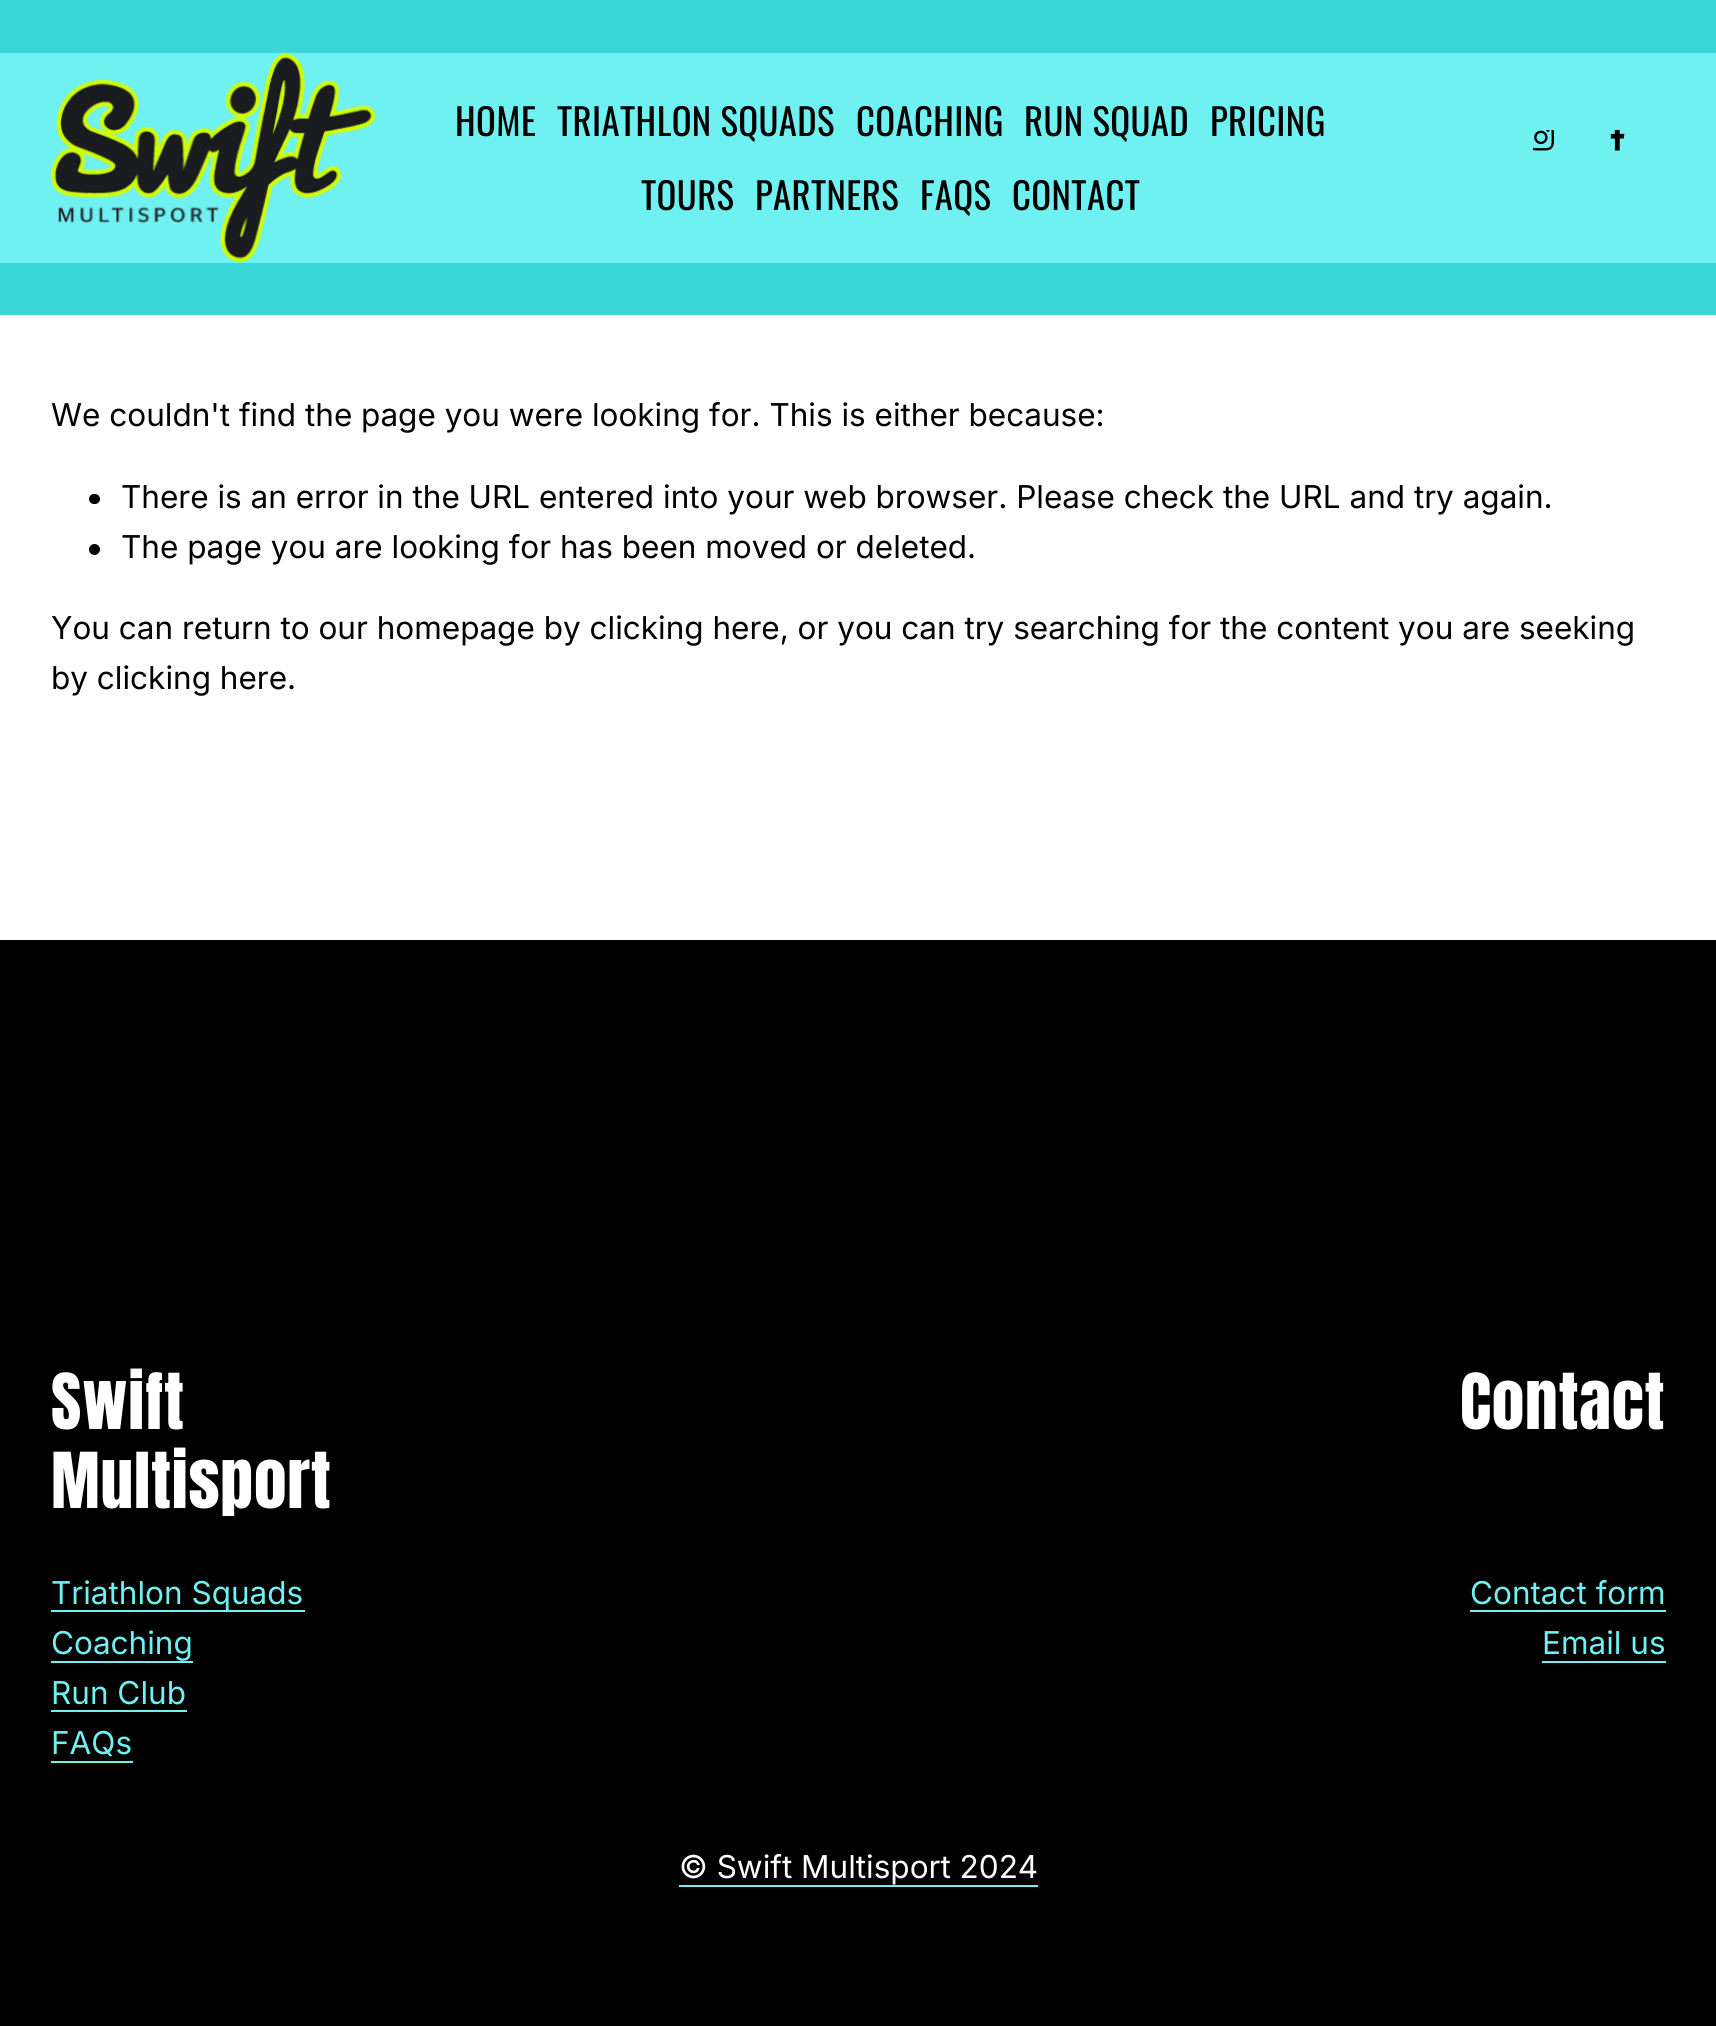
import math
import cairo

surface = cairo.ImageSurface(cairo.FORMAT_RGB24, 1716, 2026)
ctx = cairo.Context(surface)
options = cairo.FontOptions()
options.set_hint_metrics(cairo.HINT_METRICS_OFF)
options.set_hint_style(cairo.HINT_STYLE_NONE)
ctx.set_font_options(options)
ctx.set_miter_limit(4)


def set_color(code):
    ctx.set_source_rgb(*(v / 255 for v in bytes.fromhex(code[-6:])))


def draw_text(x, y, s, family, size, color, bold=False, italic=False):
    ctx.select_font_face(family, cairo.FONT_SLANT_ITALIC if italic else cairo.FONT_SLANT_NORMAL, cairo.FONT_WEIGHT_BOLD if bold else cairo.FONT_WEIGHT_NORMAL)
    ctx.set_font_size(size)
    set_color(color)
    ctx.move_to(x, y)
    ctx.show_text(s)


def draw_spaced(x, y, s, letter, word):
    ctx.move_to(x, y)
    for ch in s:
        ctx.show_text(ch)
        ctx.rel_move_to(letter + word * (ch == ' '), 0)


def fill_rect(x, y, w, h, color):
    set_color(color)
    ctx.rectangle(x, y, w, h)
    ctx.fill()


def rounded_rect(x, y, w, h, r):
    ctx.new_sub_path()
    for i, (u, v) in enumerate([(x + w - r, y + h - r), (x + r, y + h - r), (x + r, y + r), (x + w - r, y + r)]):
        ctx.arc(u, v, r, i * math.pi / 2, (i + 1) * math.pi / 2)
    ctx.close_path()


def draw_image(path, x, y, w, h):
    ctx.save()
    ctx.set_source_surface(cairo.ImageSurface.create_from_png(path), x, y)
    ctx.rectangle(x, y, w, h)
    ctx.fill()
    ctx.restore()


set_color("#ffffff")
ctx.paint()
fill_rect(0, 53, 1716, 210, "#6ff0f1")
fill_rect(0, 0, 1716, 53, "#3ad7d9")
fill_rect(0, 263, 1716, 52, "#3ad7d9")
draw_image("assets/img1.png", 50, 52, 326, 211)
ctx.select_font_face("Oswald")
ctx.set_font_size(36.75)
set_color("#000000")
draw_spaced(455, 136, "HOME", 0.4, 0)
draw_spaced(557, 136, "TRIATHLON SQUADS", 0.4, 0)
draw_spaced(856, 136, "COACHING", 0.4, 0)
draw_spaced(1024, 136, "RUN SQUAD", 0.4, 0)
draw_spaced(1210, 136, "PRICING", 0.4, 0)
draw_spaced(641, 210, "TOURS", 0.4, 0)
draw_spaced(755, 210, "PARTNERS", 0.4, 0)
draw_spaced(920, 210, "FAQS", 0.4, 0)
draw_spaced(1012, 210, "CONTACT", 0.4, 0)
draw_image("assets/img2.png", 1533, 130, 21, 21)
draw_image("assets/img3.png", 1610, 130, 15, 21)
draw_text(51, 426, "We couldn't find the page you were looking for. This is either because:", "Inter", 31.5, "#000000")
rounded_rect(89, 494, 11, 10, 5)
ctx.fill()
draw_text(121, 508, "There is an error in the URL entered into your web browser. Please check the URL and try again.", "Inter", 31.5, "#000000")
ctx.new_path()
ctx.arc(94.5, 549.5, 5.5, 0, 2 * math.pi)
ctx.fill()
draw_text(121, 558, "The page you are looking for has been moved or deleted.", "Inter", 31.5, "#000000")
draw_text(51, 639, "You can return to our homepage by clicking here, or you can try searching for the content you are seeking", "Inter", 31.5, "#000000")
draw_text(51, 689, "by clicking here.", "Inter", 31.5, "#000000")
fill_rect(0, 940, 1716, 1086, "#000000")
ctx.select_font_face("Anton")
ctx.set_font_size(65.5)
set_color("#ffffff")
draw_spaced(51, 1429, "Swift", 0.75, 0)
draw_spaced(51, 1508, "Multisport", 0.75, 0)
fill_rect(51, 1610, 254, 2, "#6ff0f1")
draw_text(51, 1604, "Triathlon Squads", "Inter", 31.5, "#6ff0f1")
draw_text(51, 1654, "Coaching", "Inter", 31.5, "#6ff0f1")
fill_rect(51, 1661, 142, 2, "#6ff0f1")
draw_text(51, 1704, "Run Club", "Inter", 31.5, "#6ff0f1")
fill_rect(51, 1710, 136, 2, "#6ff0f1")
draw_text(51, 1754, "FAQs", "Inter", 31.5, "#6ff0f1")
fill_rect(51, 1761, 82, 2, "#6ff0f1")
ctx.select_font_face("Anton")
ctx.set_font_size(65.5)
set_color("#ffffff")
draw_spaced(1460, 1429, "Contact", 0.75, 0)
draw_text(1470, 1604, "Contact form", "Inter", 31.5, "#6ff0f1")
fill_rect(1470, 1610, 196, 2, "#6ff0f1")
draw_text(1542, 1654, "Email us", "Inter", 31.5, "#6ff0f1")
fill_rect(1542, 1661, 124, 2, "#6ff0f1")
draw_text(679, 1878, "© Swift Multisport 2024", "Inter", 31.5, "#ffffff")
fill_rect(679, 1885, 359, 2, "#6ff0f1")
surface.write_to_png("output.png")
